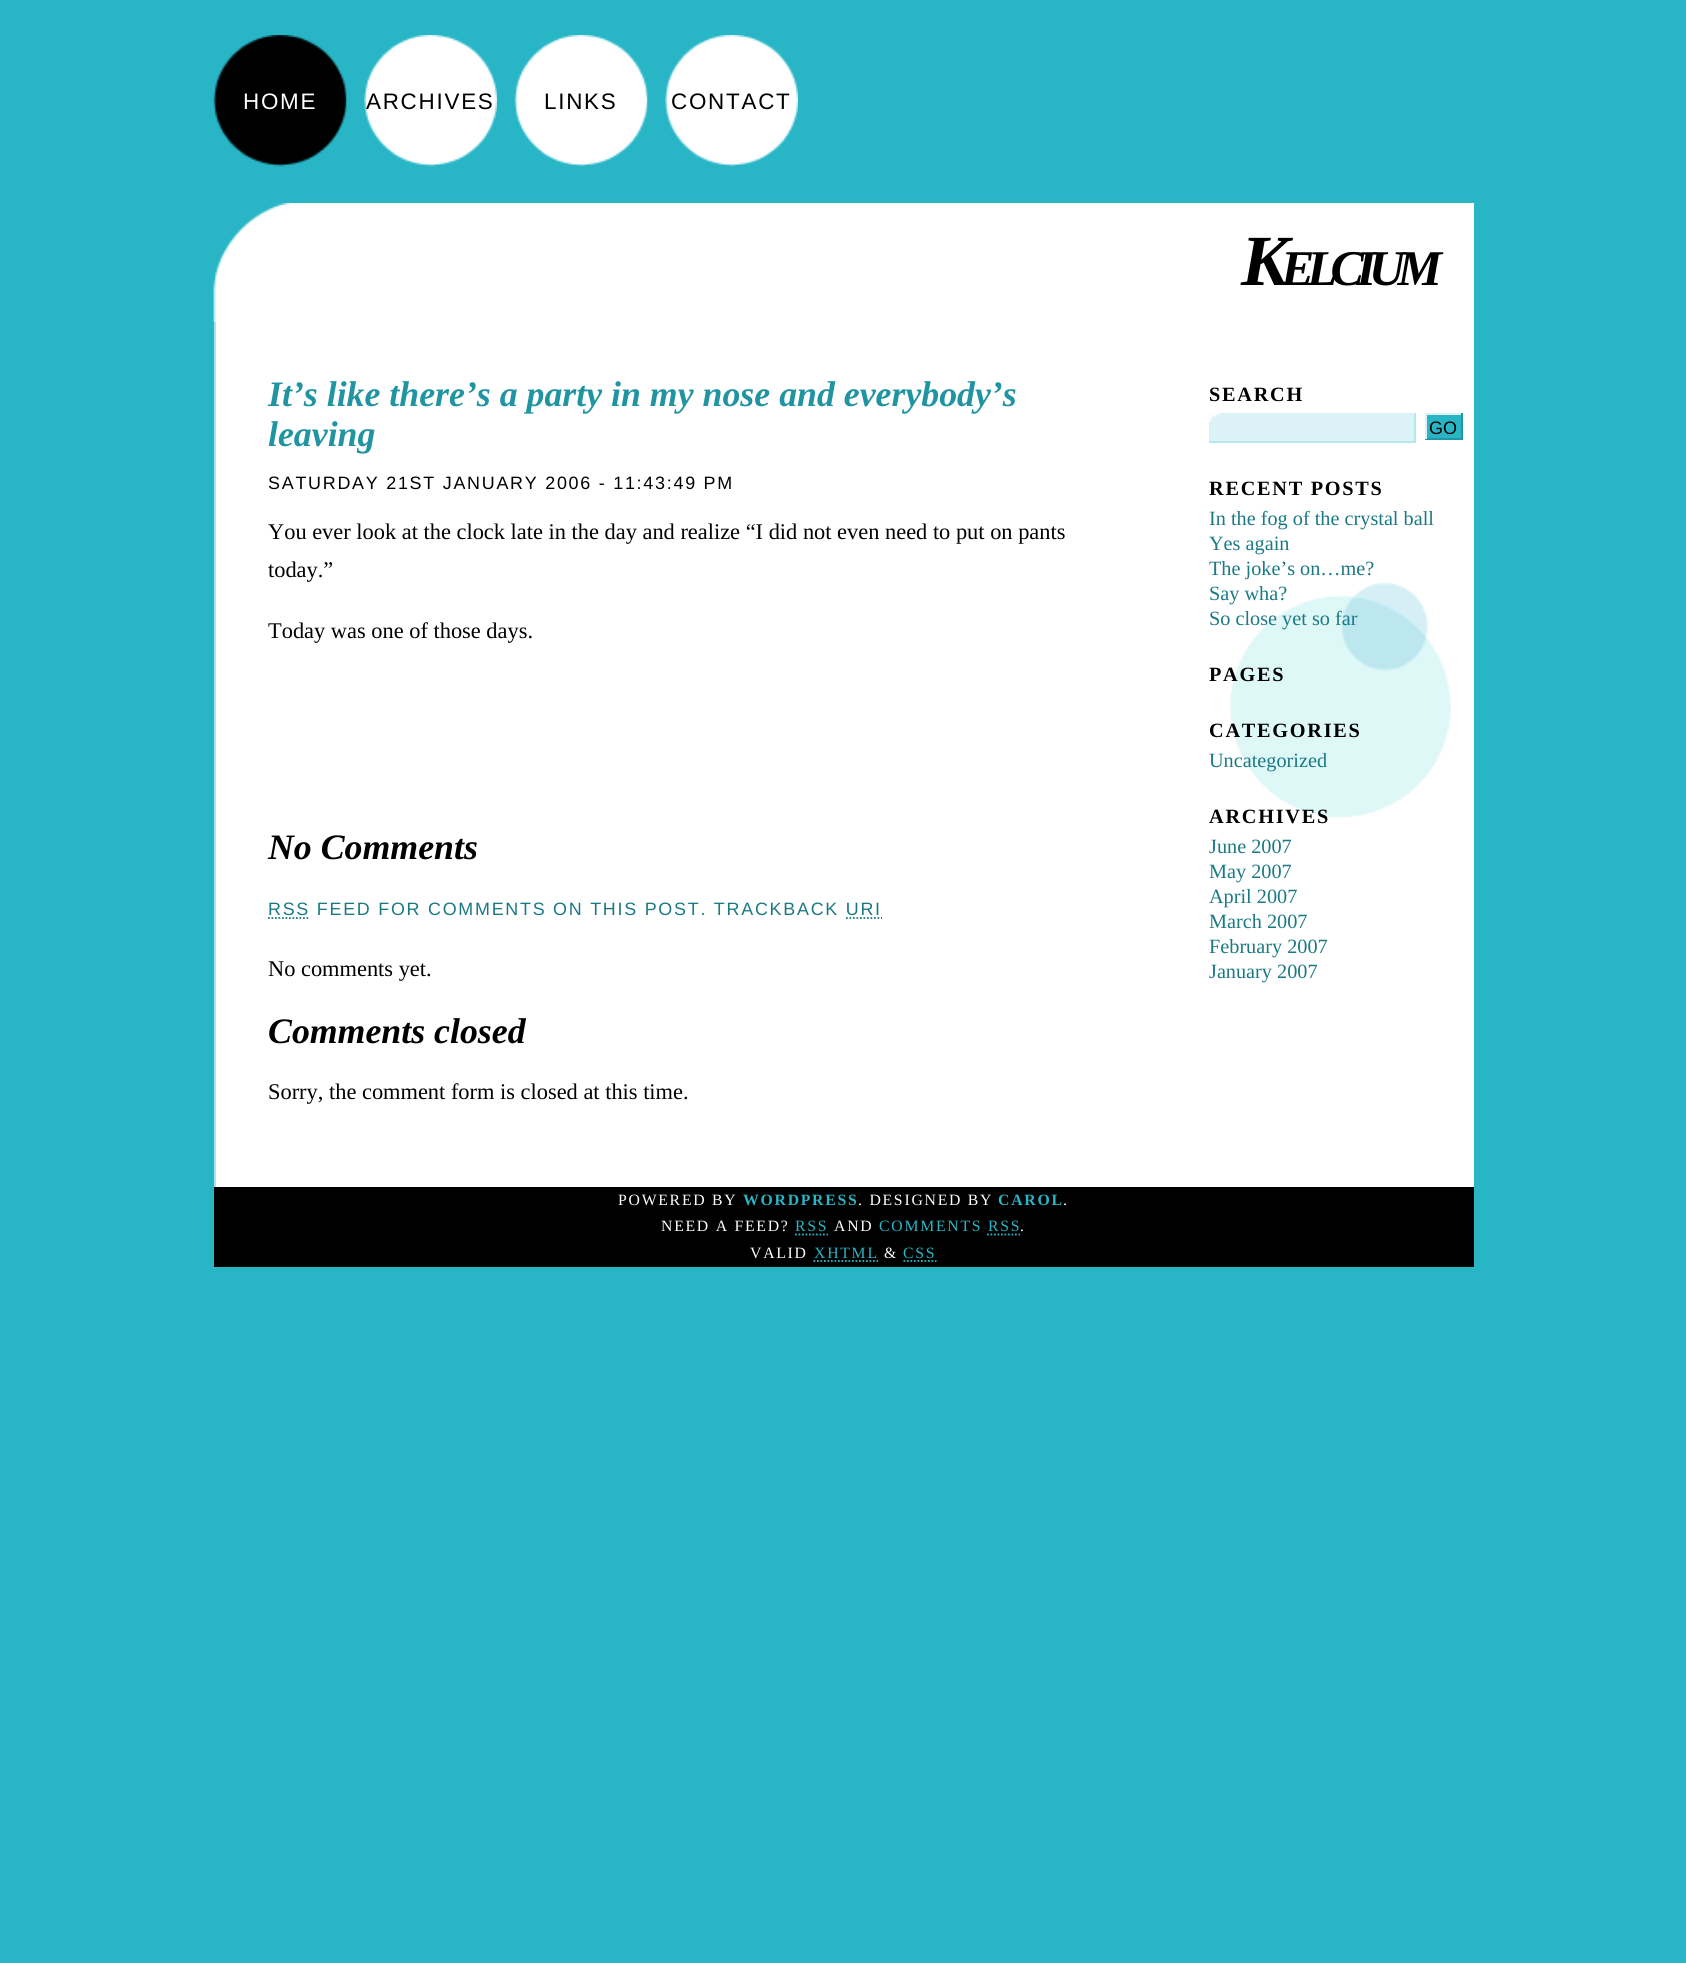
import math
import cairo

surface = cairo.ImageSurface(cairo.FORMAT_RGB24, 1686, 1963)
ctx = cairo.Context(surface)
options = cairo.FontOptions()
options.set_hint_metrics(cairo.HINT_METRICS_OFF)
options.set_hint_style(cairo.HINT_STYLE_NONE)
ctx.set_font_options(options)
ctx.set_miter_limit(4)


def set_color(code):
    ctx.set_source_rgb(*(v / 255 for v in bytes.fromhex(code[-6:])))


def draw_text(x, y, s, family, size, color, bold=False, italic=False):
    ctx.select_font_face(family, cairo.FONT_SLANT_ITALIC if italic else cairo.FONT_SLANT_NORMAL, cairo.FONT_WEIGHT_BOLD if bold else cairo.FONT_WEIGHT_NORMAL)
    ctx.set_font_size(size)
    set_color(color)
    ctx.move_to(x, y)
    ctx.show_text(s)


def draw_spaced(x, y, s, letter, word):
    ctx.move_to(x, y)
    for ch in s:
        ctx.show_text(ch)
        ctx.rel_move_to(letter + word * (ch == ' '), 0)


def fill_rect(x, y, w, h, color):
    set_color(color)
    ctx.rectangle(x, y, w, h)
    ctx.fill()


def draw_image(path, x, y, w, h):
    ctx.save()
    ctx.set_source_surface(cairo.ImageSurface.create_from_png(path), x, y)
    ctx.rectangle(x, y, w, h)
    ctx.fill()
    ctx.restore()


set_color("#28b5c6")
ctx.paint()
fill_rect(216, 203, 1258, 984, "#ffffff")
draw_image("assets/img1.png", 213, 35, 134, 132)
ctx.select_font_face("Liberation Sans")
ctx.set_font_size(22.4)
draw_spaced(243, 109, "HOME", 1.75, 0)
draw_image("assets/img2.png", 364, 35, 133, 132)
set_color("#000000")
draw_spaced(366, 109, "ARCHIVES", 1.75, 0)
draw_image("assets/img3.png", 514, 35, 134, 132)
draw_spaced(544, 109, "LINKS", 1.75, 0)
draw_image("assets/img4.png", 665, 35, 133, 132)
draw_spaced(671, 109, "CONTACT", 1.75, 0)
draw_image("assets/img5.png", 213, 203, 78, 119)
ctx.select_font_face("Liberation Serif", cairo.FONT_SLANT_ITALIC, cairo.FONT_WEIGHT_BOLD)
ctx.set_font_size(72)
draw_spaced(1241, 285, "K", -7.25, 0)
ctx.set_font_size(50)
draw_spaced(1281, 285, "ELCIUM", -7.25, 0)
fill_rect(214, 322, 2, 865, "#aee3ea")
draw_text(268, 406, "It’s like there’s a party in my nose and everybody’s", "Liberation Serif", 35.8, "#2094a1", bold=True, italic=True)
draw_text(268, 446, "leaving", "Liberation Serif", 35.8, "#2094a1", bold=True, italic=True)
ctx.select_font_face("Liberation Sans")
ctx.set_font_size(17.9)
set_color("#000000")
draw_spaced(268, 489, "SATURDAY 21ST JANUARY 2006 - 11:43:49 PM", 1.75, 0)
draw_text(268, 539, "You ever look at the clock late in the day and realize “I did not even need to put on pants", "Liberation Serif", 22.4, "#000000")
draw_text(268, 577, "today.”", "Liberation Serif", 22.4, "#000000")
draw_text(268, 638, "Today was one of those days.", "Liberation Serif", 22.4, "#000000")
draw_text(268, 859, "No Comments", "Liberation Serif", 35.8, "#000000", bold=True, italic=True)
ctx.select_font_face("Liberation Sans")
ctx.set_font_size(17.9)
set_color("#1b7984")
draw_spaced(268, 915, "RSS FEED FOR COMMENTS ON THIS POST. TRACKBACK URI", 1.75, 0)
ctx.new_path()
ctx.move_to(268, 918)
ctx.line_to(310, 918)
ctx.set_line_width(1.8)
ctx.set_dash([1.75, 1.75])
ctx.stroke()
ctx.new_path()
ctx.move_to(846, 918)
ctx.line_to(882, 918)
ctx.stroke()
draw_text(268, 976, "No comments yet.", "Liberation Serif", 22.4, "#000000")
draw_text(268, 1043, "Comments closed", "Liberation Serif", 35.8, "#000000", bold=True, italic=True)
draw_text(268, 1099, "Sorry, the comment form is closed at this time.", "Liberation Serif", 22.4, "#000000")
draw_image("assets/img6.png", 1230, 582, 221, 236)
ctx.select_font_face("Liberation Serif", cairo.FONT_SLANT_NORMAL, cairo.FONT_WEIGHT_BOLD)
ctx.set_font_size(20.25)
draw_spaced(1209, 401, "SEARCH", 1.75, 0)
fill_rect(1209, 413, 205, 28, "#dbf3f6")
draw_image("assets/img7.png", 1209, 413, 11, 9)
fill_rect(1414, 413, 2, 30, "#b7e6ec")
fill_rect(1209, 441, 207, 2, "#b7e6ec")
fill_rect(1427, 415, 34, 23, "#28b5c6")
fill_rect(1425, 413, 38, 2, "#dbf3f6")
fill_rect(1461, 413, 2, 26, "#2197a5")
fill_rect(1425, 438, 38, 2, "#2197a5")
fill_rect(1425, 413, 2, 26, "#dbf3f6")
draw_text(1429, 434, "GO", "Liberation Sans", 18, "#000000")
ctx.select_font_face("Liberation Serif", cairo.FONT_SLANT_NORMAL, cairo.FONT_WEIGHT_BOLD)
ctx.set_font_size(20.25)
draw_spaced(1209, 495, "RECENT POSTS", 1.75, 0)
draw_text(1209, 525, "In the fog of the crystal ball", "Liberation Serif", 20.25, "#1b7984")
draw_text(1209, 550, "Yes again", "Liberation Serif", 20.25, "#1b7984")
draw_text(1209, 575, "The joke’s on…me?", "Liberation Serif", 20.25, "#1b7984")
draw_text(1209, 600, "Say wha?", "Liberation Serif", 20.25, "#1b7984")
draw_text(1209, 625, "So close yet so far", "Liberation Serif", 20.25, "#1b7984")
ctx.select_font_face("Liberation Serif", cairo.FONT_SLANT_NORMAL, cairo.FONT_WEIGHT_BOLD)
set_color("#000000")
draw_spaced(1209, 681, "PAGES", 1.75, 0)
draw_spaced(1209, 737, "CATEGORIES", 1.75, 0)
draw_text(1209, 767, "Uncategorized", "Liberation Serif", 20.25, "#1b7984")
ctx.select_font_face("Liberation Serif", cairo.FONT_SLANT_NORMAL, cairo.FONT_WEIGHT_BOLD)
set_color("#000000")
draw_spaced(1209, 823, "ARCHIVES", 1.75, 0)
draw_text(1209, 853, "June 2007", "Liberation Serif", 20.25, "#1b7984")
draw_text(1209, 878, "May 2007", "Liberation Serif", 20.25, "#1b7984")
draw_text(1209, 903, "April 2007", "Liberation Serif", 20.25, "#1b7984")
draw_text(1209, 928, "March 2007", "Liberation Serif", 20.25, "#1b7984")
draw_text(1209, 953, "February 2007", "Liberation Serif", 20.25, "#1b7984")
draw_text(1209, 978, "January 2007", "Liberation Serif", 20.25, "#1b7984")
fill_rect(214, 1187, 1260, 80, "#000000")
ctx.set_font_size(15.75)
set_color("#ffffff")
draw_spaced(618, 1205, "POWERED BY", 1.75, 0)
ctx.select_font_face("Liberation Serif", cairo.FONT_SLANT_NORMAL, cairo.FONT_WEIGHT_BOLD)
set_color("#28b5c6")
draw_spaced(743, 1205, "WORDPRESS", 1.75, 0)
ctx.select_font_face("Liberation Serif")
set_color("#ffffff")
draw_spaced(858, 1205, ". DESIGNED BY", 1.75, 0)
ctx.select_font_face("Liberation Serif", cairo.FONT_SLANT_NORMAL, cairo.FONT_WEIGHT_BOLD)
set_color("#28b5c6")
draw_spaced(998, 1205, "CAROL", 1.75, 0)
ctx.select_font_face("Liberation Serif")
set_color("#ffffff")
draw_spaced(1063, 1205, ".", 1.75, 0)
draw_spaced(661, 1231, "NEED A FEED?", 1.75, 0)
set_color("#28b5c6")
draw_spaced(795, 1231, "RSS", 1.75, 0)
ctx.new_path()
ctx.move_to(795, 1234.5)
ctx.line_to(828, 1234.5)
ctx.stroke()
set_color("#ffffff")
draw_spaced(834, 1231, "AND", 1.75, 0)
set_color("#28b5c6")
draw_spaced(879, 1231, "COMMENTS RSS", 1.75, 0)
ctx.new_path()
ctx.move_to(987, 1234.5)
ctx.line_to(1020, 1234.5)
ctx.stroke()
set_color("#ffffff")
draw_spaced(1020, 1231, ".", 1.75, 0)
draw_spaced(750, 1258, "VALID", 1.75, 0)
set_color("#28b5c6")
draw_spaced(814, 1258, "XHTML", 1.75, 0)
ctx.new_path()
ctx.move_to(813.5, 1261)
ctx.line_to(878, 1261)
ctx.stroke()
set_color("#ffffff")
draw_spaced(884, 1258, "&", 1.75, 0)
set_color("#28b5c6")
draw_spaced(903, 1258, "CSS", 1.75, 0)
ctx.new_path()
ctx.move_to(903.5, 1261)
ctx.line_to(936.5, 1261)
ctx.stroke()
surface.write_to_png("output.png")
